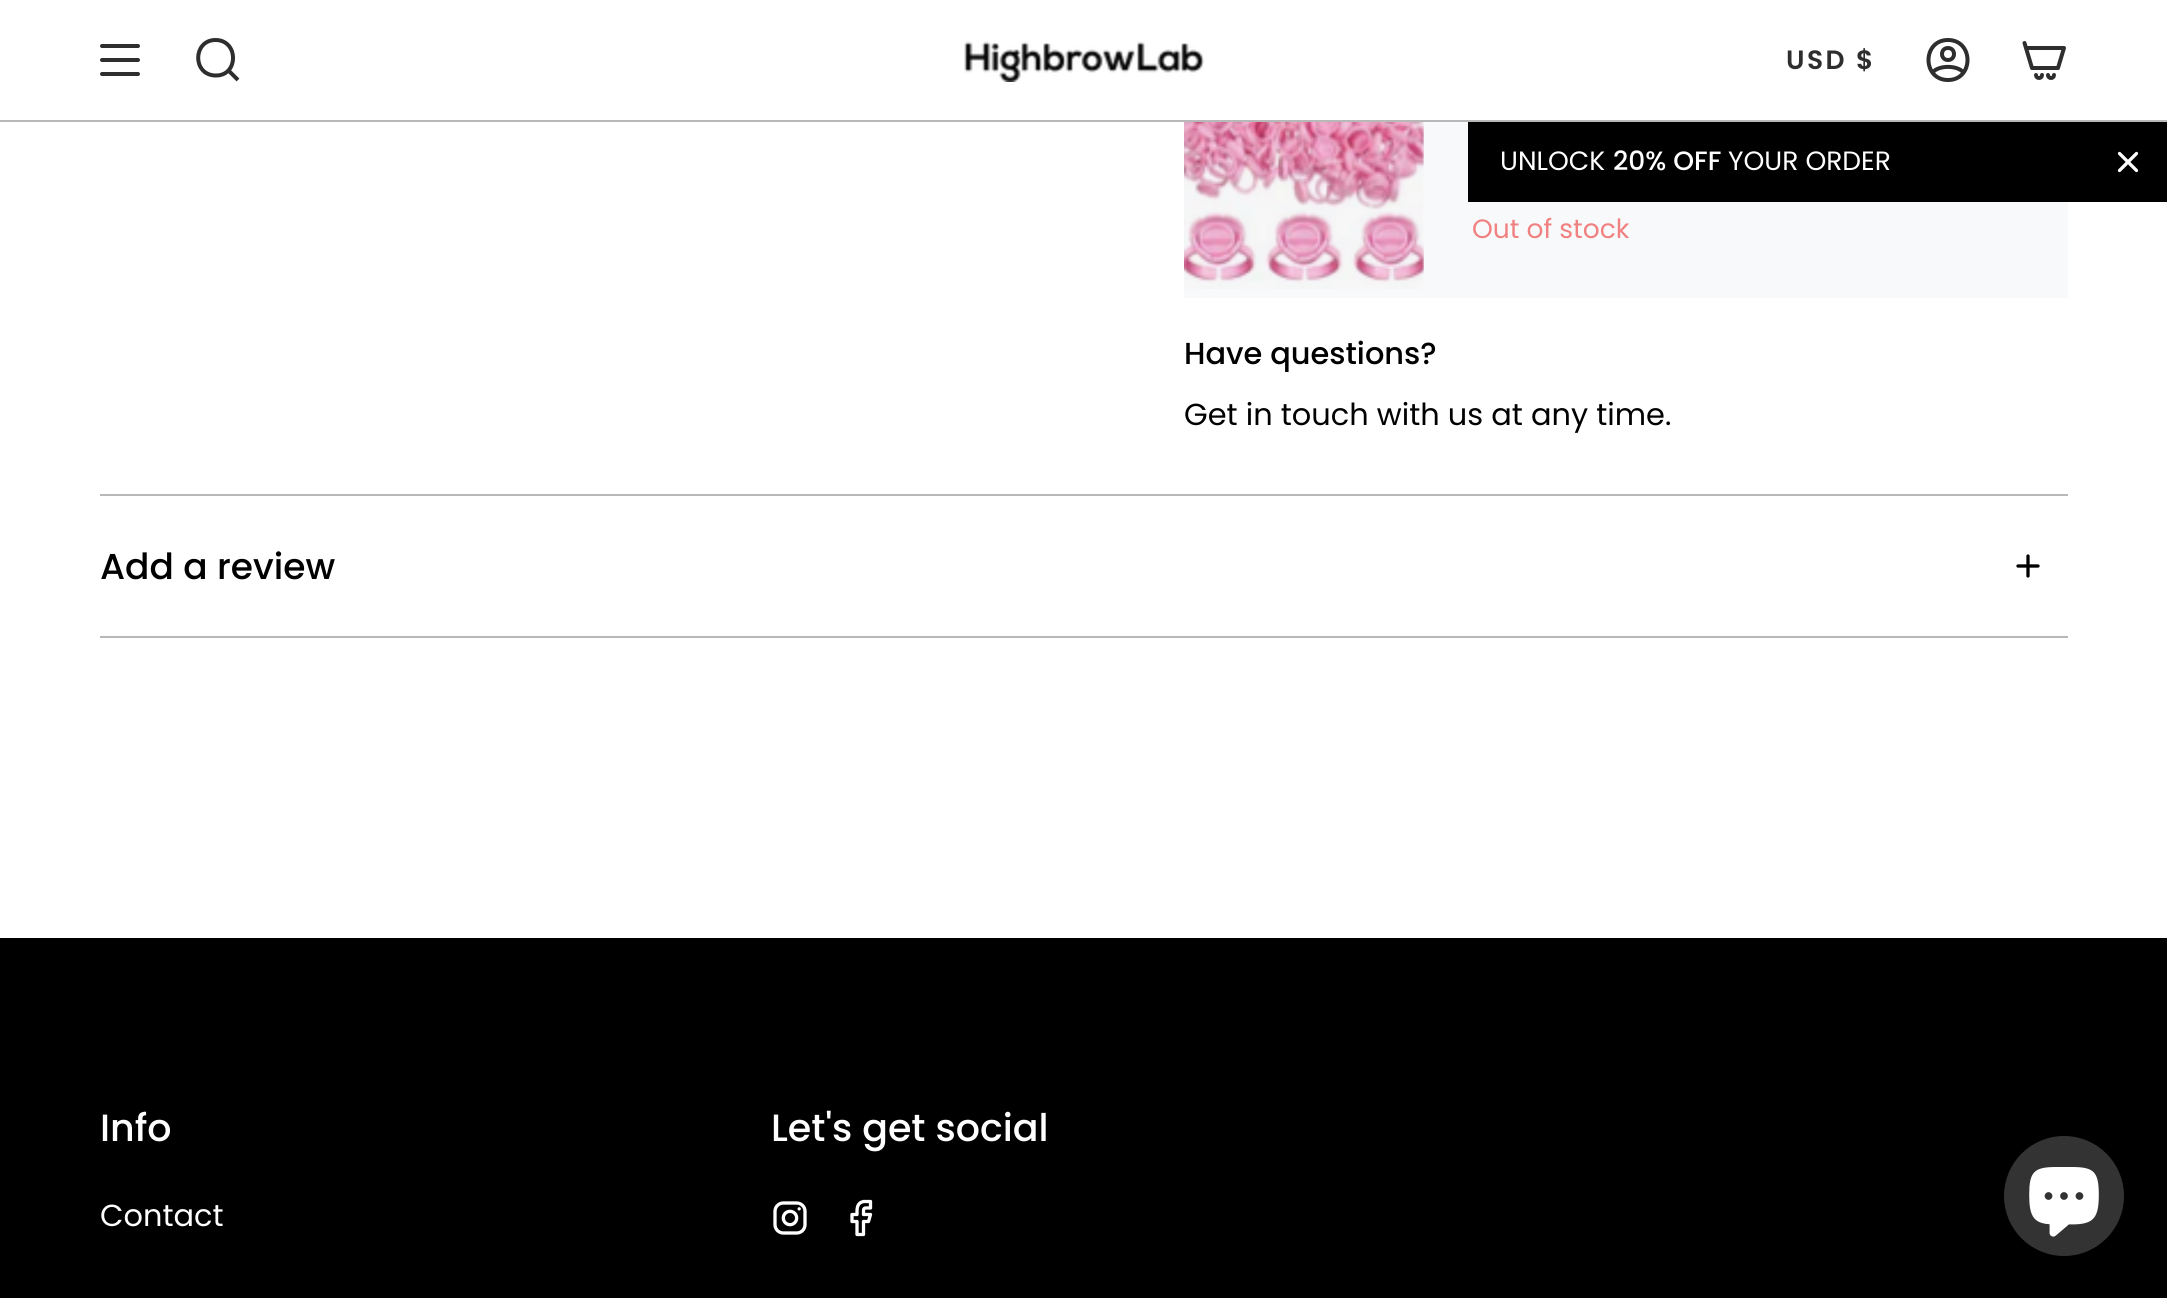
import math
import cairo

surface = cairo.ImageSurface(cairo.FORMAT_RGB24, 2167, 1298)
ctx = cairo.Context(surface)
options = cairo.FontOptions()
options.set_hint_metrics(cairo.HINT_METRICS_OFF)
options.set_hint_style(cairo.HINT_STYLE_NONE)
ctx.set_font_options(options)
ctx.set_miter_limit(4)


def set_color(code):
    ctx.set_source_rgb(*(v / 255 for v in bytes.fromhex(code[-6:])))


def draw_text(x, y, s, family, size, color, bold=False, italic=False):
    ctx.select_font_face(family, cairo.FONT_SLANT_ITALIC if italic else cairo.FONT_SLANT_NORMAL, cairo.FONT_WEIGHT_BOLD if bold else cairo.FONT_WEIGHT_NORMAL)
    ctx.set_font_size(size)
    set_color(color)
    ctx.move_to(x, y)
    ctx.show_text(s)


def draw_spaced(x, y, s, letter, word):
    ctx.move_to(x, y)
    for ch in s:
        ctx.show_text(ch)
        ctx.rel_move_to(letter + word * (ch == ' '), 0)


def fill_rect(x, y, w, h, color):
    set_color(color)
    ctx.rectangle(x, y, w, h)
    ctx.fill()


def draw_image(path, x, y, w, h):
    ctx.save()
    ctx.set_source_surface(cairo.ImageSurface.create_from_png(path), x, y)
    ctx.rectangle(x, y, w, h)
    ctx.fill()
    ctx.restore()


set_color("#ffffff")
ctx.paint()
fill_rect(0, 120, 2167, 2, "#b9b8b8")
ctx.new_path()
ctx.move_to(102, 46)
ctx.line_to(138, 46)
ctx.move_to(102, 60)
ctx.line_to(138, 60)
ctx.move_to(102, 74)
ctx.line_to(138, 74)
set_color("#2e2e2e")
ctx.set_line_width(4)
ctx.set_line_cap(cairo.LINE_CAP_ROUND)
ctx.set_line_join(cairo.LINE_JOIN_ROUND)
ctx.stroke()
ctx.new_path()
ctx.move_to(215.5, 40)
ctx.curve_to(239, 40, 239, 76.5, 215, 75.5)
ctx.curve_to(192, 74.5, 193, 40, 215.5, 40)
ctx.close_path()
ctx.move_to(228, 70)
ctx.line_to(238, 80)
ctx.set_line_cap(cairo.LINE_CAP_BUTT)
ctx.set_line_join(cairo.LINE_JOIN_MITER)
ctx.stroke()
draw_image("assets/img1.png", 964, 41, 240, 41)
ctx.select_font_face("Poppins SemiBold")
ctx.set_font_size(26.5)
draw_spaced(1786, 69, "USD $", 2.5, 0)
ctx.new_path()
ctx.move_to(1948, 40)
ctx.curve_to(1922, 40, 1922, 80, 1948, 80)
ctx.curve_to(1974, 80, 1974, 40, 1948, 40)
ctx.close_path()
ctx.move_to(1932.5, 72.5)
ctx.curve_to(1938.5, 65, 1957.5, 65, 1963.5, 72.5)
ctx.move_to(1948, 60)
ctx.curve_to(1956, 60, 1956, 48, 1948, 48)
ctx.curve_to(1940, 48, 1940, 60, 1948, 60)
ctx.close_path()
ctx.set_line_cap(cairo.LINE_CAP_ROUND)
ctx.set_line_join(cairo.LINE_JOIN_ROUND)
ctx.stroke()
ctx.new_path()
ctx.move_to(2026, 48)
ctx.line_to(2064, 48)
ctx.line_to(2058, 68)
ctx.line_to(2032, 68)
ctx.close_path()
ctx.move_to(2026, 48)
ctx.line_to(2024.5, 43)
ctx.move_to(2042, 75)
ctx.curve_to(2042, 79, 2036, 79, 2036, 75)
ctx.move_to(2054, 75)
ctx.curve_to(2054, 79, 2048, 79, 2048, 75)
ctx.stroke()
fill_rect(1184, 122, 884, 176, "#f7f9fa")
draw_image("assets/img2.png", 1184, 122, 240, 167)
draw_text(1472, 238, "Out of stock", "Poppins", 26.5, "#f18080")
draw_text(1184, 364, "Have questions?", "Poppins Medium", 30.4, "#000000")
draw_text(1184, 425, "Get in touch with us at any time.", "Poppins", 30.4, "#000000")
fill_rect(100, 494, 1968, 2, "#b9b8b8")
fill_rect(100, 636, 1968, 2, "#b9b8b8")
draw_text(100, 579, "Add a review", "Poppins Medium", 36, "#000000")
draw_image("assets/img3.png", 2016, 554, 24, 24)
fill_rect(1468, 122, 699, 80, "#000000")
draw_text(1500, 170, "UNLOCK", "Poppins", 26.5, "#ffffff")
draw_text(1613, 170, "20% OFF", "Poppins Medium", 26.5, "#ffffff")
draw_text(1728, 170, "YOUR ORDER", "Poppins", 26.5, "#ffffff")
ctx.new_path()
ctx.move_to(2119.5, 170.5)
ctx.line_to(2128, 162)
ctx.move_to(2136.5, 153.5)
ctx.line_to(2128, 162)
ctx.move_to(2128, 162)
ctx.line_to(2119.5, 153.5)
ctx.move_to(2128, 162)
ctx.line_to(2136.5, 170.5)
ctx.set_line_width(3.3)
ctx.stroke()
fill_rect(0, 938, 2167, 360, "#000000")
draw_text(100, 1141, "Info", "Poppins Medium", 38, "#ffffff")
draw_text(100, 1226, "Contact", "Poppins", 30.4, "#ffffff")
draw_text(771, 1141, "Let's get social", "Poppins Medium", 38, "#ffffff")
draw_image("assets/img4.png", 773, 1201, 34, 34)
ctx.new_path()
ctx.move_to(870.5, 1201.5)
ctx.line_to(863.5, 1201.5)
ctx.curve_to(856.5, 1203, 857, 1209, 857, 1214.5)
ctx.line_to(852, 1214.5)
ctx.line_to(852, 1221.5)
ctx.line_to(857, 1221.5)
ctx.line_to(857, 1234.5)
ctx.line_to(863.5, 1234.5)
ctx.line_to(863.5, 1221.5)
ctx.line_to(868.5, 1221.5)
ctx.line_to(870.5, 1214.5)
ctx.line_to(863.5, 1214.5)
ctx.curve_to(863.5, 1207, 863, 1208, 870.5, 1208)
ctx.close_path()
ctx.stroke()
set_color("#333333")
ctx.arc(2064, 1196, 60, 0, 2 * math.pi)
ctx.fill()
draw_image("assets/img5.png", 2029, 1167, 70, 70)
surface.write_to_png("output.png")
